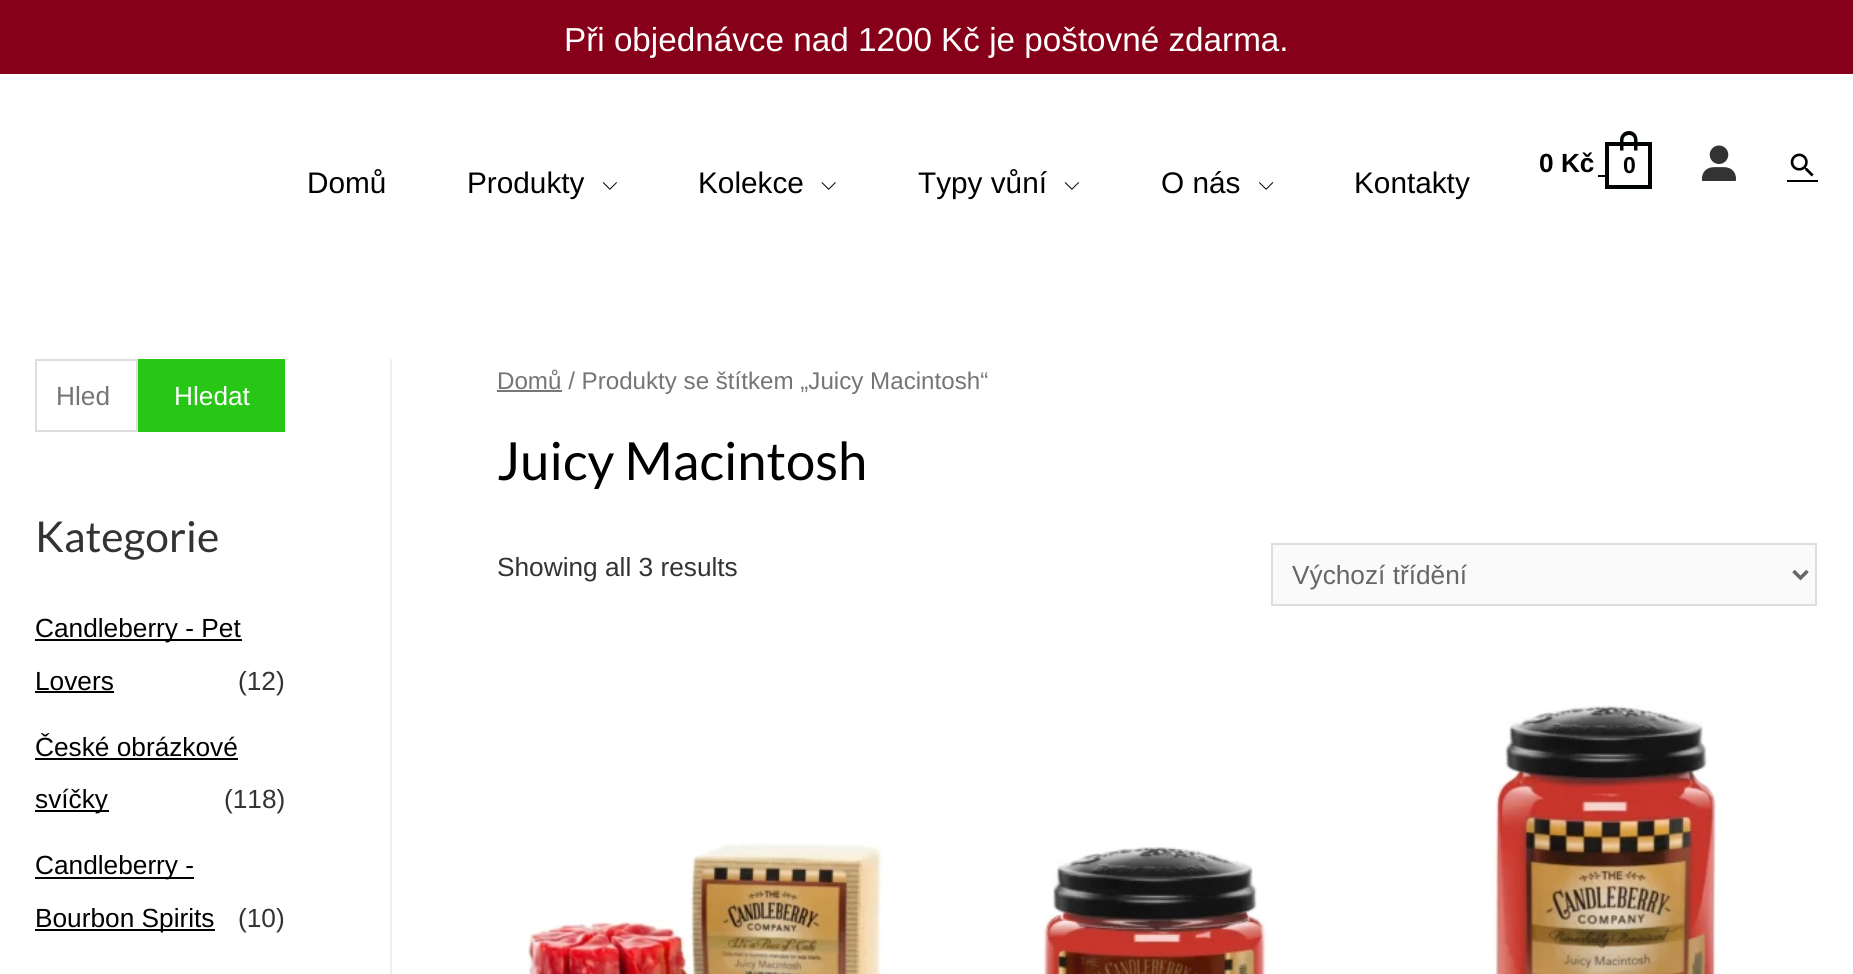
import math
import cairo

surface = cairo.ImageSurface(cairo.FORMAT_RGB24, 1853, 974)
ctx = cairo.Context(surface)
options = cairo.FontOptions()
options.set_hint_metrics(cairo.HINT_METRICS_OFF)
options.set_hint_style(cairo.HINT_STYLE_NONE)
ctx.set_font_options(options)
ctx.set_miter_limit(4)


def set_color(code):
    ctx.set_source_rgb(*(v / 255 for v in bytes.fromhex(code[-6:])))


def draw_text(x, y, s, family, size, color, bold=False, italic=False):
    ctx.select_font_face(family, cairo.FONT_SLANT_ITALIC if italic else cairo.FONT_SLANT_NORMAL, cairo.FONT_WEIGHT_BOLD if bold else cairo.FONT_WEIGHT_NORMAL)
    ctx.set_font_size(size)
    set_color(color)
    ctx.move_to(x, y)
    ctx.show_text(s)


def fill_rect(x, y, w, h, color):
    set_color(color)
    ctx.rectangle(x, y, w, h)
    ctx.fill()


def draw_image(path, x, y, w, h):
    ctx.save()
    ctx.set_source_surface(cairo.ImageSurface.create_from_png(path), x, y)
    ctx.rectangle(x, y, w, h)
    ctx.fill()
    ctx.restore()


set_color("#ffffff")
ctx.paint()
fill_rect(0, 0, 1853, 74, "#850018")
draw_text(564, 51, "Při objednávce nad 1200 Kč je poštovné zdarma.", "Liberation Sans", 33.25, "#ffffff")
draw_text(1539, 172, "0 Kč", "Liberation Sans", 26.25, "#000000", bold=True)
ctx.rectangle(1607, 144, 43, 43)
set_color("#000304")
ctx.set_line_width(4)
ctx.stroke()
ctx.set_fill_rule(cairo.FILL_RULE_EVEN_ODD)
ctx.new_path()
ctx.move_to(1629, 131)
ctx.curve_to(1634, 131, 1637.5, 135, 1637.5, 140)
ctx.line_to(1637.5, 150.5)
ctx.line_to(1620, 150.5)
ctx.line_to(1620, 140)
ctx.curve_to(1620, 135, 1624, 131, 1629, 131)
ctx.close_path()
ctx.move_to(1629, 135)
ctx.curve_to(1632, 135, 1634, 137, 1634, 140)
ctx.line_to(1634, 150.5)
ctx.line_to(1623.5, 150.5)
ctx.line_to(1623.5, 140)
ctx.curve_to(1623.5, 137, 1626, 135, 1629, 135)
ctx.close_path()
ctx.fill()
draw_text(1623, 173, "0", "Liberation Sans", 23, "#000000", bold=True)
fill_rect(1598, 175, 7, 2, "#000000")
draw_image("assets/img1.png", 1701, 145, 35, 36)
fill_rect(1787, 180, 31, 2, "#000000")
draw_image("assets/img2.png", 1790, 153, 24, 24)
draw_text(307, 193, "Domů", "Liberation Sans", 29.75, "#000000")
draw_text(467, 193, "Produkty", "Liberation Sans", 29.75, "#000000")
draw_image("assets/img3.png", 602, 182, 15, 8)
draw_text(698, 193, "Kolekce", "Liberation Sans", 29.75, "#000000")
draw_image("assets/img4.png", 821, 182, 15, 8)
draw_text(918, 193, "Typy vůní", "Liberation Sans", 29.75, "#000000")
draw_image("assets/img3.png", 1064, 182, 15, 8)
draw_text(1161, 193, "O nás", "Liberation Sans", 29.75, "#000000")
draw_image("assets/img5.png", 1259, 182, 15, 8)
draw_text(1354, 193, "Kontakty", "Liberation Sans", 29.75, "#000000")
fill_rect(390, 359, 2, 615, "#eeeeee")
ctx.rectangle(36, 360, 101, 71)
set_color("#dddddd")
ctx.set_line_width(2)
ctx.stroke()
draw_text(56, 405, "Hled", "Liberation Sans", 26.25, "#757575")
fill_rect(138, 359, 147, 73, "#28c716")
draw_text(174, 405, "Hledat", "Liberation Sans", 26.25, "#ffffff")
draw_text(35, 552, "Kategorie", "Lato", 42.5, "#333333")
fill_rect(35, 639, 207, 2, "#000000")
draw_text(35, 637, "Candleberry - Pet", "Liberation Sans", 26.25, "#000000")
draw_text(35, 690, "Lovers", "Liberation Sans", 26.25, "#000000")
fill_rect(35, 691, 79, 2, "#000000")
draw_text(238, 690, "(12)", "Liberation Sans", 26.25, "#333333")
draw_text(35, 756, "České obrázkové", "Liberation Sans", 26.25, "#000000")
fill_rect(35, 758, 203, 2, "#000000")
fill_rect(35, 810, 74, 2, "#000000")
draw_text(35, 808, "svíčky", "Liberation Sans", 26.25, "#000000")
draw_text(224, 808, "(118)", "Liberation Sans", 26.25, "#333333")
fill_rect(35, 877, 159, 2, "#000000")
draw_text(35, 874, "Candleberry -", "Liberation Sans", 26.25, "#000000")
fill_rect(35, 929, 180, 2, "#000000")
draw_text(35, 927, "Bourbon Spirits", "Liberation Sans", 26.25, "#000000")
draw_text(238, 927, "(10)", "Liberation Sans", 26.25, "#333333")
fill_rect(497, 390, 65, 2, "#777777")
draw_text(497, 389, "Domů / Produkty se štítkem „Juicy Macintosh“", "Liberation Sans", 24.15, "#757575")
draw_text(497, 480, "Juicy Macintosh", "Lato", 52.5, "#000000")
draw_text(497, 576, "Showing all 3 results", "Liberation Sans", 26.25, "#333333")
set_color("#fafafa")
ctx.rectangle(1272, 544, 544, 61)
ctx.fill_preserve()
set_color("#dddddd")
ctx.stroke()
ctx.new_path()
ctx.move_to(1793.5, 571)
ctx.line_to(1800.5, 578)
ctx.line_to(1807.5, 571)
set_color("#666666")
ctx.set_line_width(3.5)
ctx.stroke()
draw_text(1292, 584, "Výchozí třídění", "Liberation Sans", 26.25, "#666666")
draw_image("assets/img6.png", 528, 843, 355, 131)
draw_image("assets/img7.png", 1041, 847, 226, 127)
draw_image("assets/img8.png", 1492, 705, 227, 269)
surface.write_to_png("output.png")
